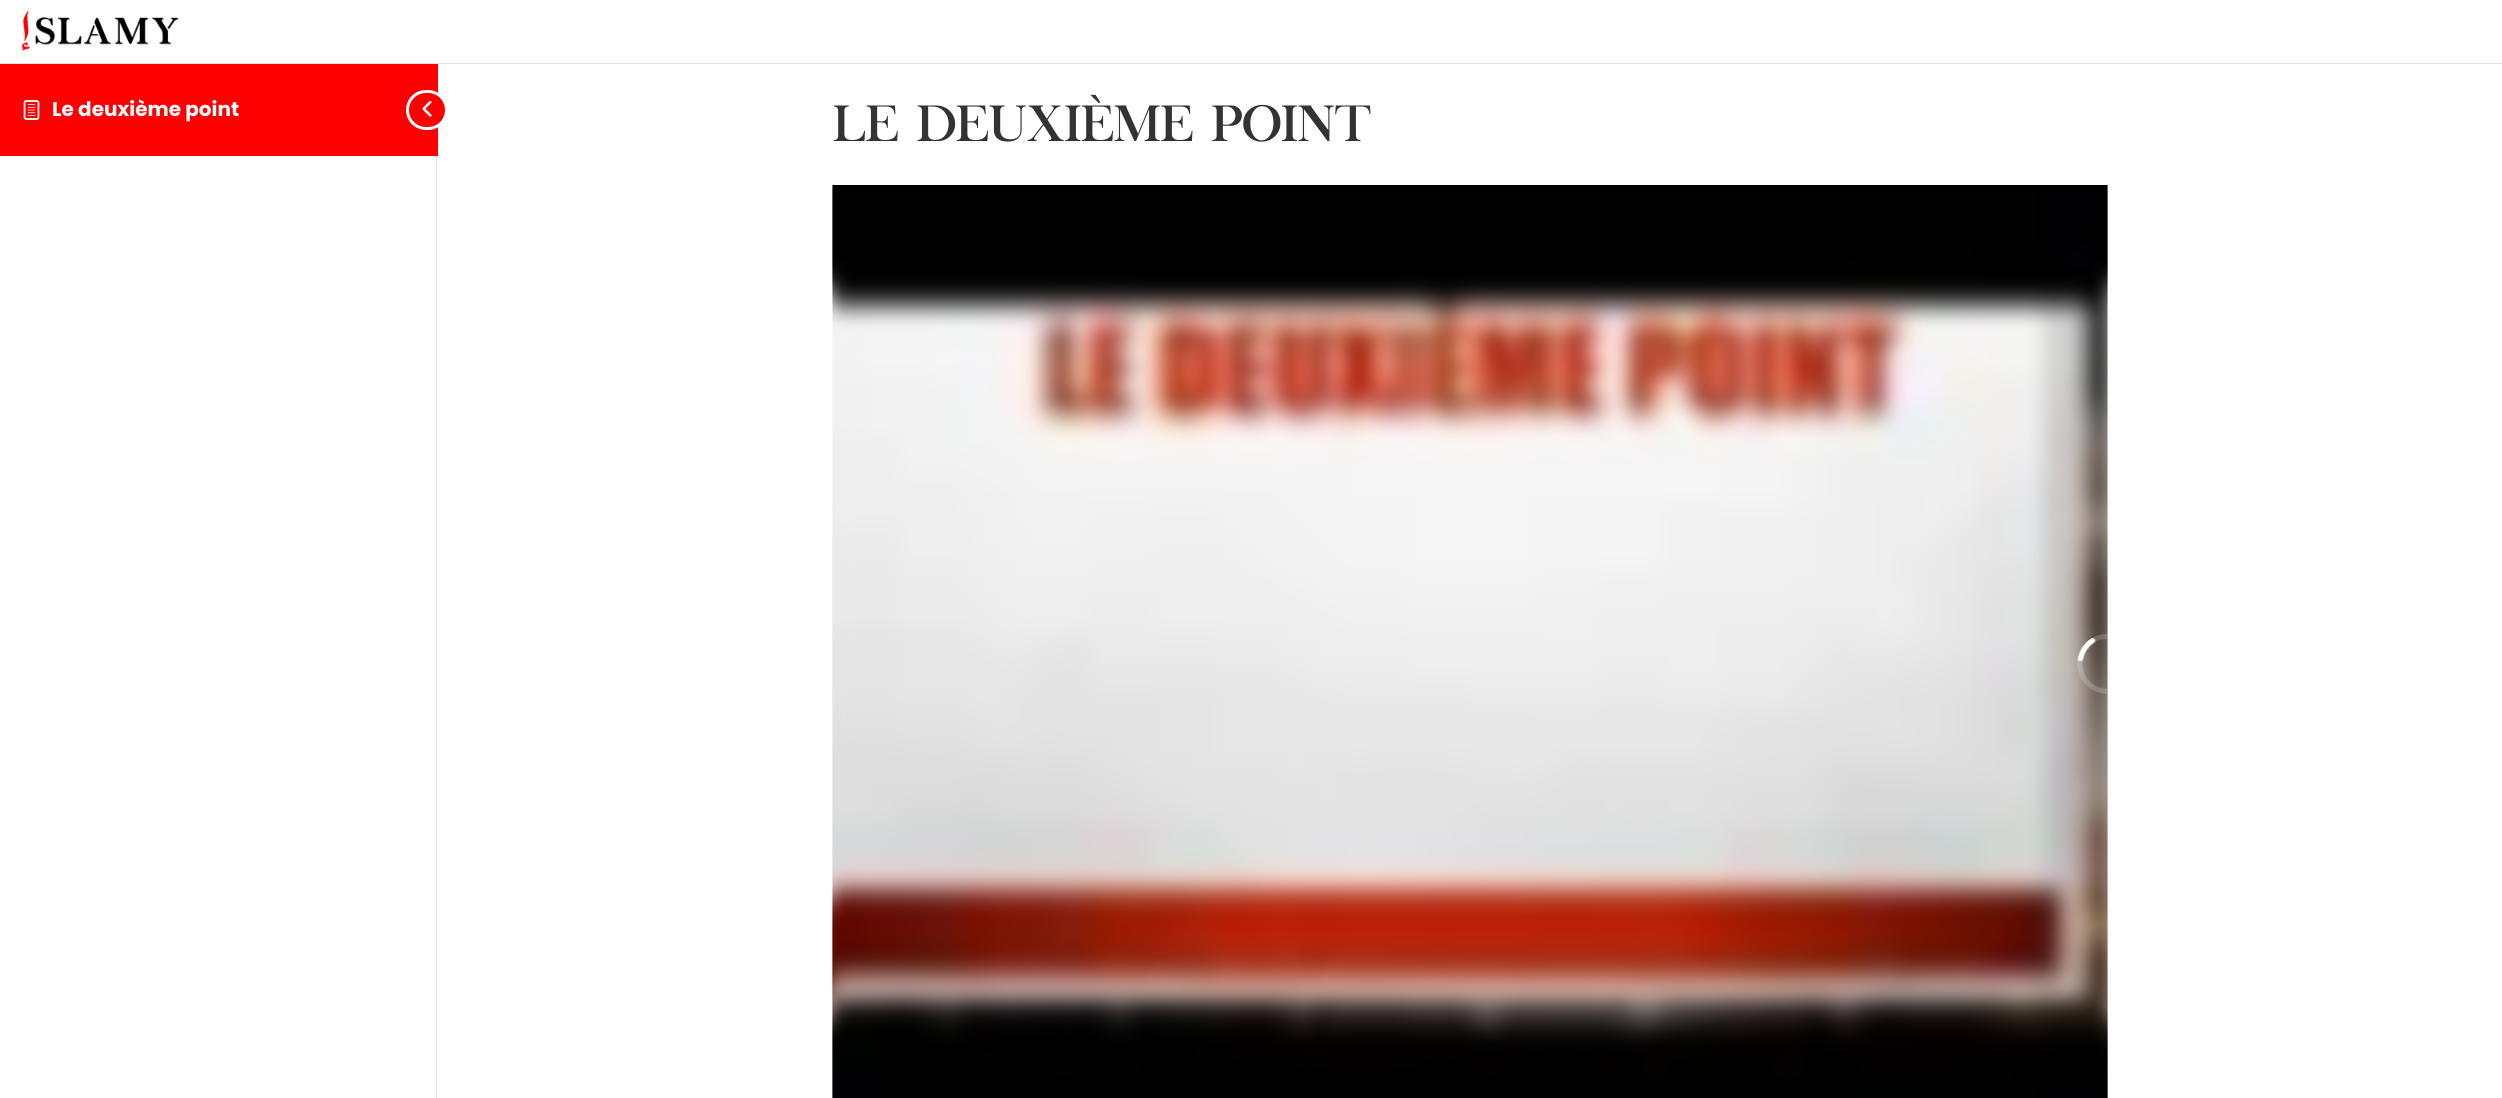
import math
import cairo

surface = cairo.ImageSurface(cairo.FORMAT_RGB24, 2502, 1098)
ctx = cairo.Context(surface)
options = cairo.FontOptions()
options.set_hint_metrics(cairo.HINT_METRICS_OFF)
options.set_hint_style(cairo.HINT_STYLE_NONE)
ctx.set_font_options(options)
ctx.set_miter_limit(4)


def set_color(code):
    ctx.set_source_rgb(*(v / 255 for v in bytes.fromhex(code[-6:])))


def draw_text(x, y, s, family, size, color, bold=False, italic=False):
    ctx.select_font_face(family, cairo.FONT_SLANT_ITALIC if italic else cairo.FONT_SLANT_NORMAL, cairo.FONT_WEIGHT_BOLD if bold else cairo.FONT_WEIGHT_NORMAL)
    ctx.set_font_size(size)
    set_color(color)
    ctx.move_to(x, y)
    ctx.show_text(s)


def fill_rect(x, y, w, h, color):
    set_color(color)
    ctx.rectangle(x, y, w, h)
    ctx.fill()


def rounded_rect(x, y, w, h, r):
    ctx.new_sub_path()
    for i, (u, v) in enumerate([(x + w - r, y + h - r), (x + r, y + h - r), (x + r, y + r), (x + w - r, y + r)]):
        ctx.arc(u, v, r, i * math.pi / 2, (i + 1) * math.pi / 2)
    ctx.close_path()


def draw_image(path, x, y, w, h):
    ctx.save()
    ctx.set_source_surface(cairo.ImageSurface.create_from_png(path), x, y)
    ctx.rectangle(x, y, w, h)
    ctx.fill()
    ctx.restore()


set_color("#ffffff")
ctx.paint()
fill_rect(436, 156, 1, 942, "#e2e7ed")
fill_rect(0, 64, 438, 92, "#ff0000")
draw_image("assets/img1.png", 23, 100, 17, 20)
draw_text(52, 116, "Le deuxième point", "Poppins", 20, "#ffffff", bold=True)
set_color("#ff0000")
rounded_rect(407.5, 91.5, 39, 37, 18.5)
ctx.fill_preserve()
set_color("#ffffff")
ctx.set_line_width(3)
ctx.stroke()
draw_image("assets/img2.png", 422, 100, 10, 17)
fill_rect(0, 63, 2502, 1, "#e2e7ed")
draw_image("assets/img3.png", 21, 10, 158, 42)
draw_text(833, 141, "LE DEUXIÈME POINT", "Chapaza", 50, "#333333")
draw_image("assets/img4.png", 832, 185, 1276, 913)
surface.write_to_png("output.png")
